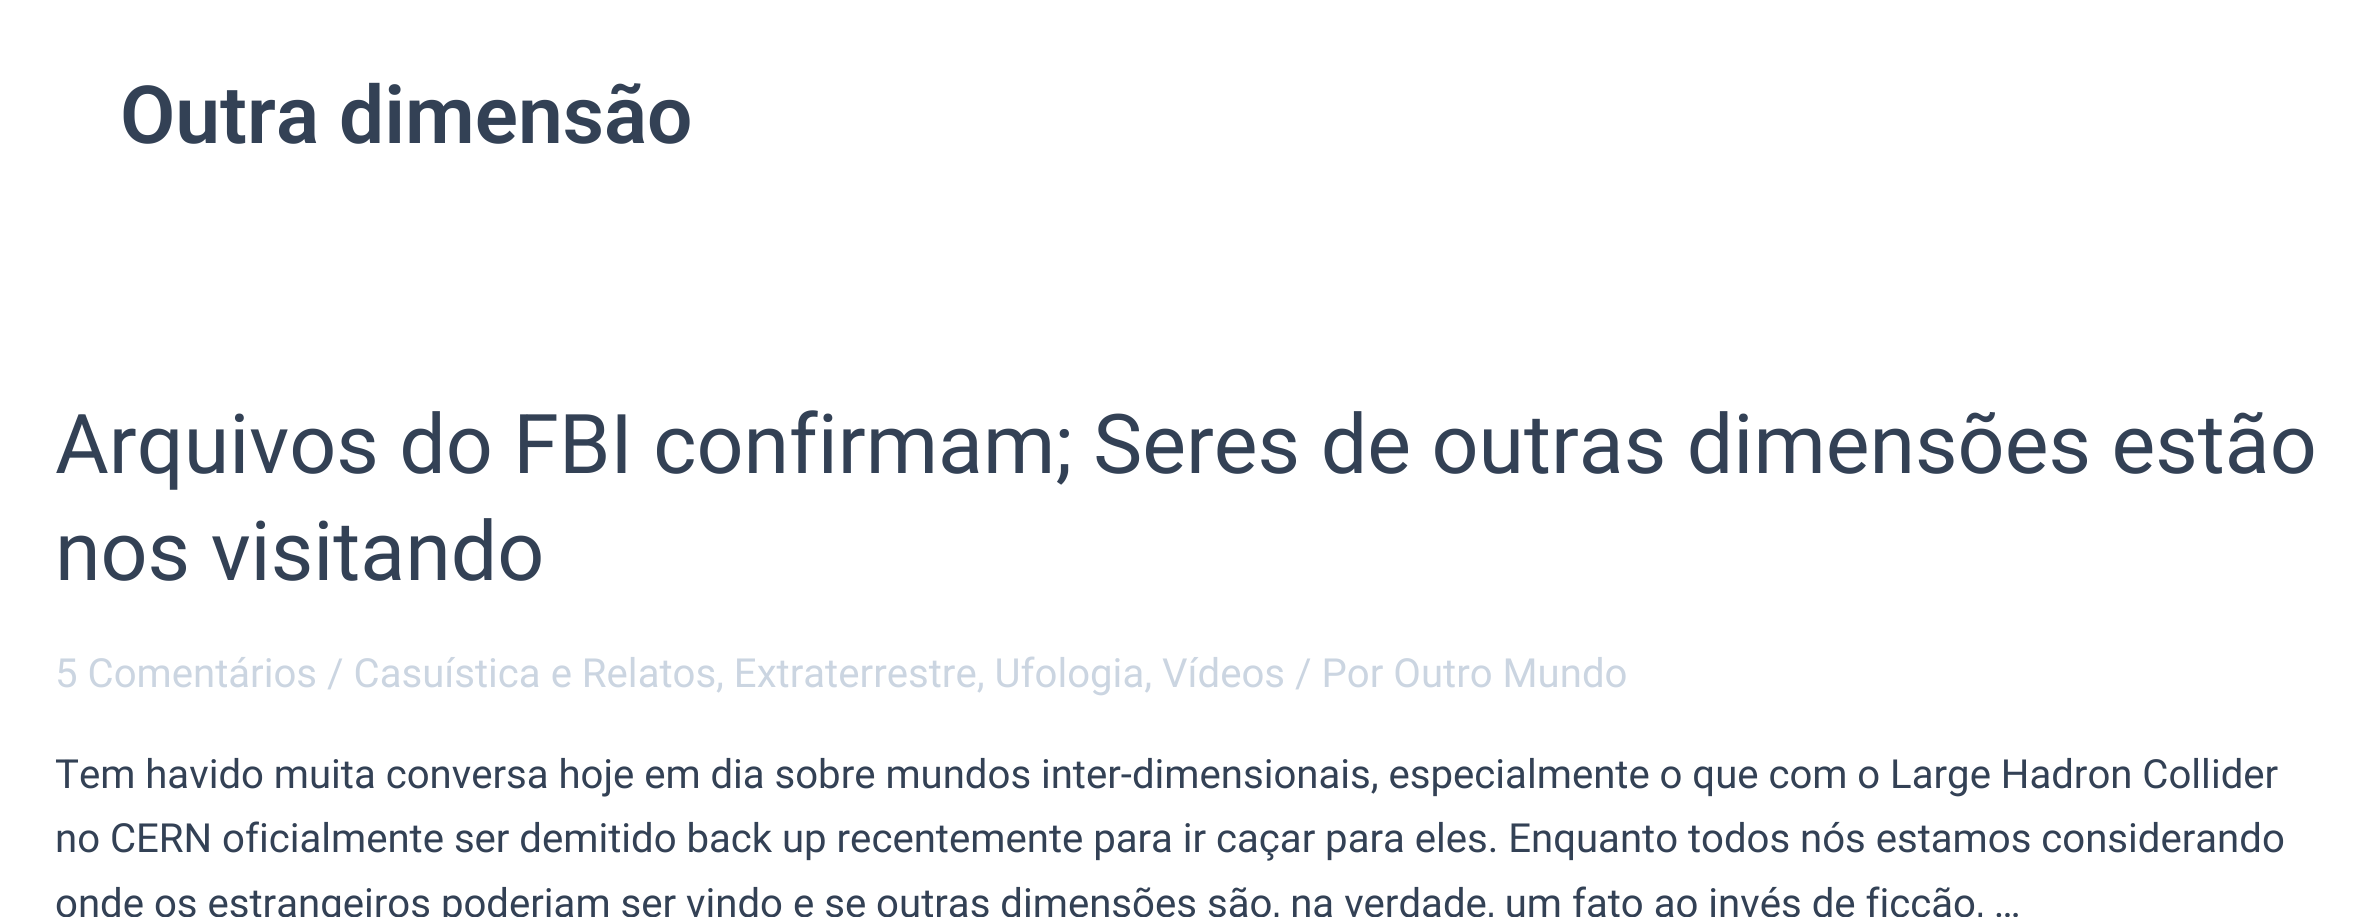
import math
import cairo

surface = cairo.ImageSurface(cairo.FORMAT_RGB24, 2376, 917)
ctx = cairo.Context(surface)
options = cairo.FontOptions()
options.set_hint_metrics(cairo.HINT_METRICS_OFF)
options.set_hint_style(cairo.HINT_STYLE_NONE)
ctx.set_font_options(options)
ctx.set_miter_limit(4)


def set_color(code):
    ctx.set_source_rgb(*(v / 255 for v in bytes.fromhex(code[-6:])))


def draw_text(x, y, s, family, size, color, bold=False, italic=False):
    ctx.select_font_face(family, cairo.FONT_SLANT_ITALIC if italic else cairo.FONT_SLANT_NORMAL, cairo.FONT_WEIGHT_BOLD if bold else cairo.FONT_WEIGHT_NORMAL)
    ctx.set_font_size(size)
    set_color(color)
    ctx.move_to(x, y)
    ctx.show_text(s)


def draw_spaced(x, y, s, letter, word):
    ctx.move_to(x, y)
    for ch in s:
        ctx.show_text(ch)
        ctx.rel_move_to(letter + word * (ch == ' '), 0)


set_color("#ffffff")
ctx.paint()
draw_text(120, 143, "Outra dimensão", "Roboto SemiBold", 80.25, "#334155")
draw_text(55, 473, "Arquivos do FBI confirmam; Seres de outras dimensões estão", "Roboto", 82.5, "#334155")
draw_text(55, 580, "nos visitando", "Roboto", 82.5, "#334155")
draw_text(55, 687, "5 Comentários / Casuística e Relatos", "Roboto", 40.13, "#cbd5e1")
draw_text(716, 687, ", Extraterrestre, Ufologia, Vídeos / Por Outro Mundo", "Roboto", 40.13, "#cbd5e1")
set_color("#334155")
draw_spaced(55, 788, "Tem havido muita conversa hoje em dia sobre mundos inter-dimensionais, especialmente o que com o Large Hadron Collider", 0, -0.1)
draw_spaced(55, 852, "no CERN oficialmente ser demitido back up recentemente para ir caçar para eles. Enquanto todos nós estamos considerando", 0, -0.1)
draw_text(55, 917, "onde os estrangeiros poderiam ser vindo e se outras dimensões são, na verdade, um fato ao invés de ficção, …", "Roboto", 40.13, "#334155")
surface.write_to_png("output.png")
